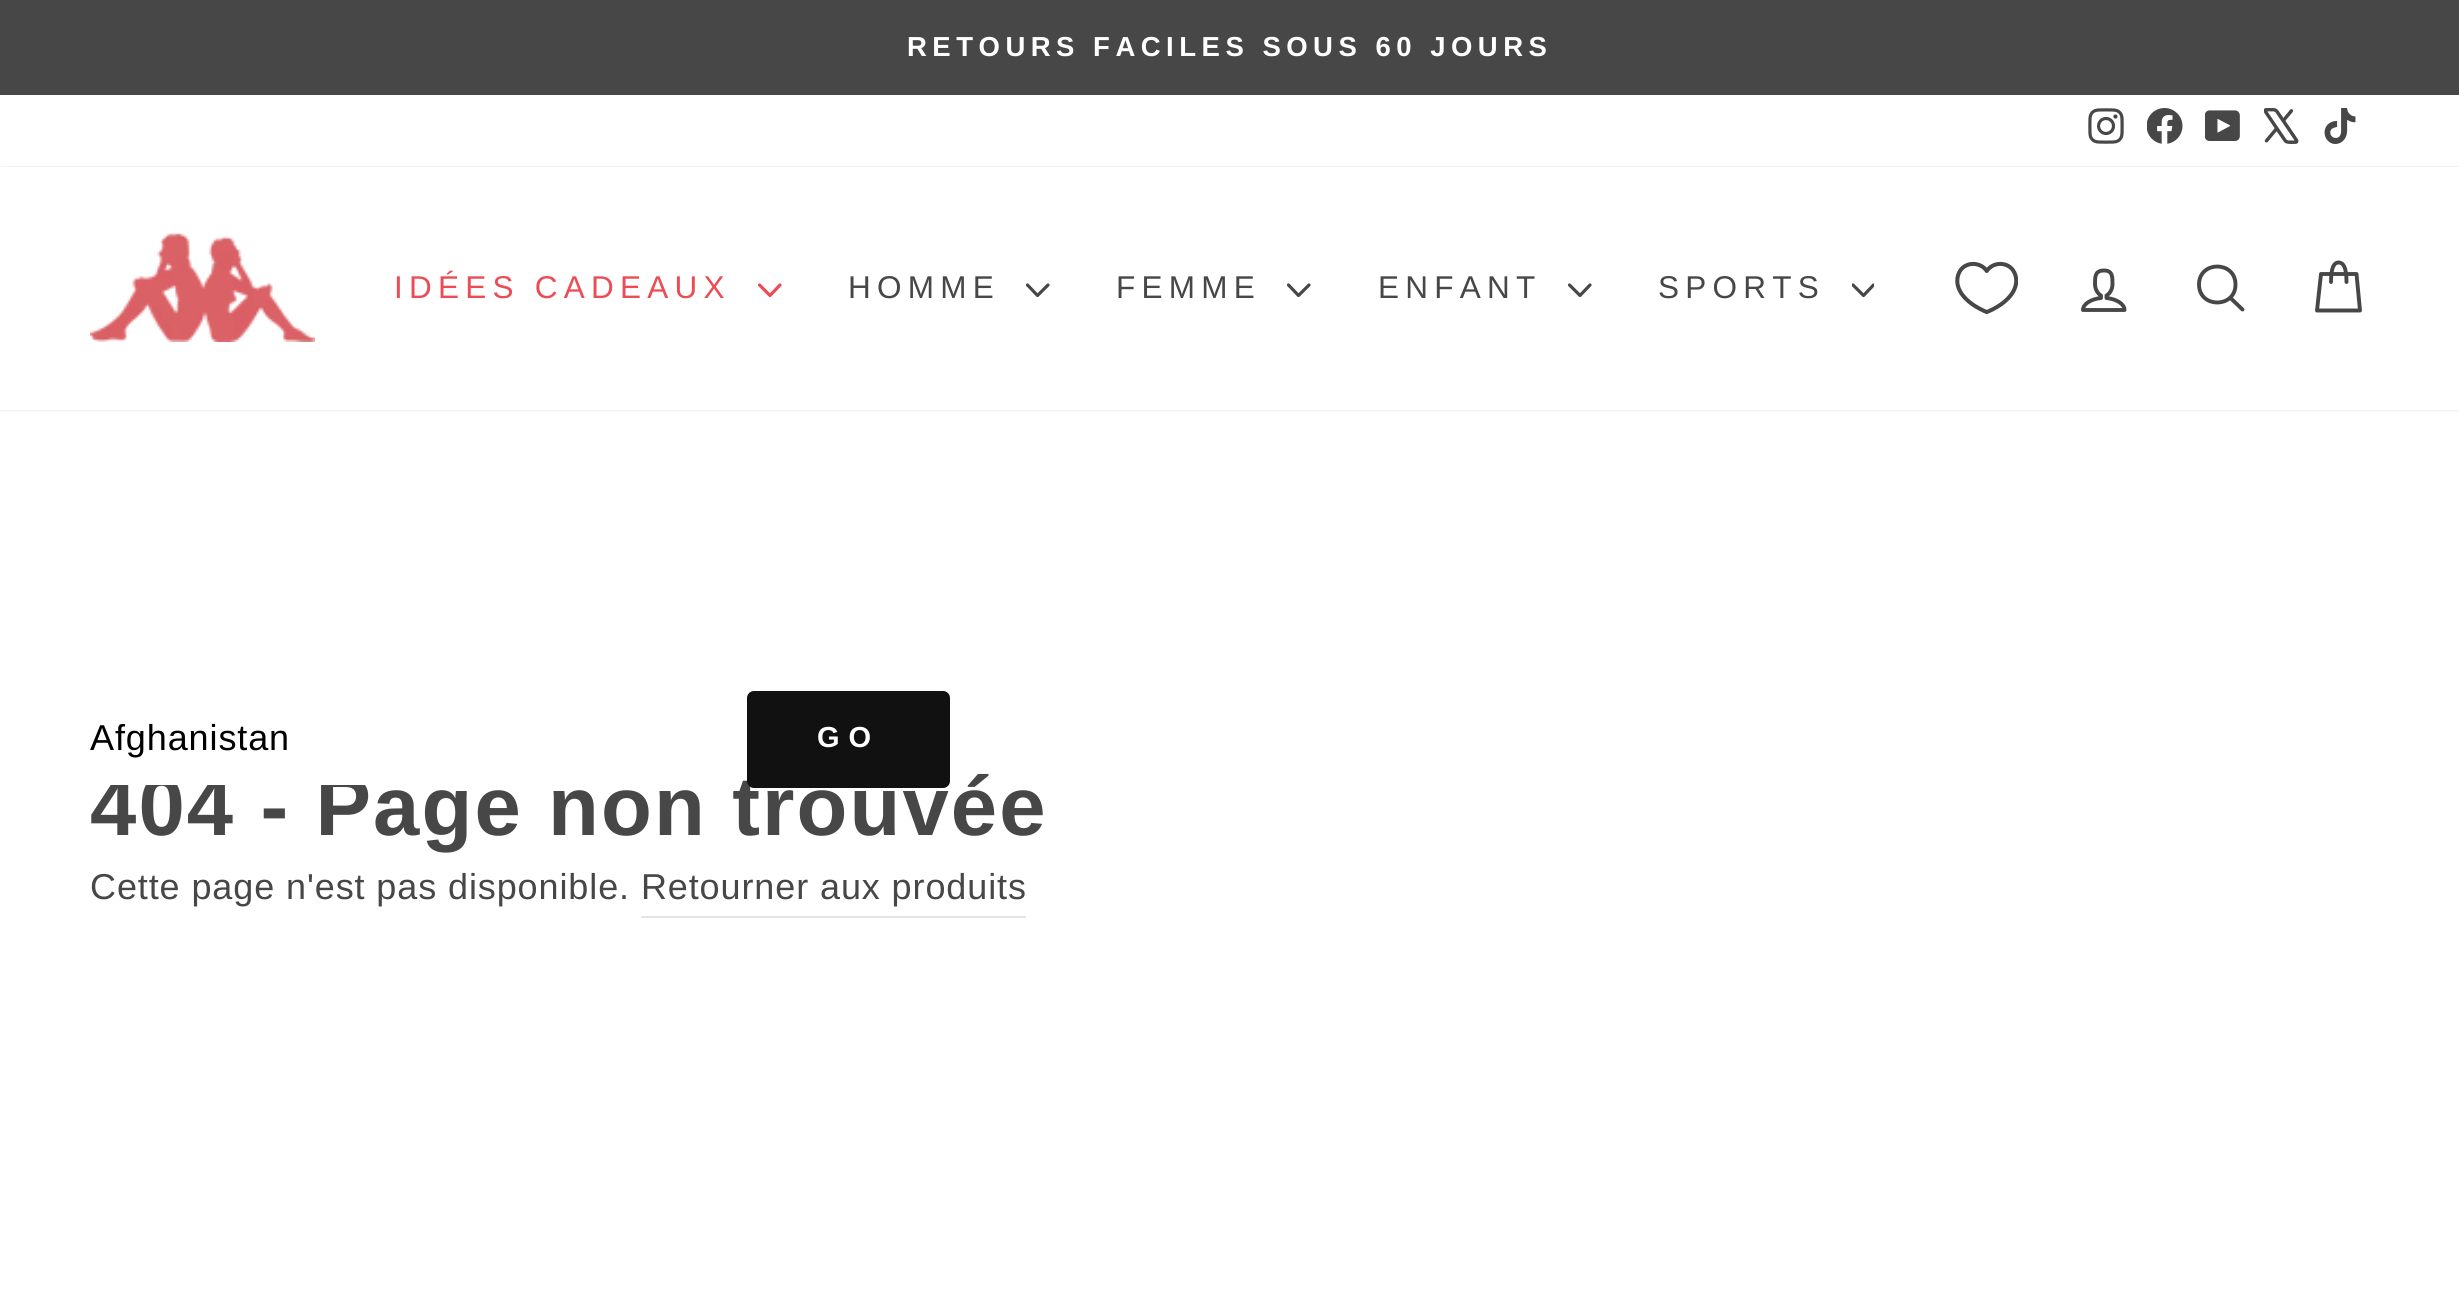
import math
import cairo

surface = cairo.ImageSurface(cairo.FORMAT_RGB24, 2459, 1298)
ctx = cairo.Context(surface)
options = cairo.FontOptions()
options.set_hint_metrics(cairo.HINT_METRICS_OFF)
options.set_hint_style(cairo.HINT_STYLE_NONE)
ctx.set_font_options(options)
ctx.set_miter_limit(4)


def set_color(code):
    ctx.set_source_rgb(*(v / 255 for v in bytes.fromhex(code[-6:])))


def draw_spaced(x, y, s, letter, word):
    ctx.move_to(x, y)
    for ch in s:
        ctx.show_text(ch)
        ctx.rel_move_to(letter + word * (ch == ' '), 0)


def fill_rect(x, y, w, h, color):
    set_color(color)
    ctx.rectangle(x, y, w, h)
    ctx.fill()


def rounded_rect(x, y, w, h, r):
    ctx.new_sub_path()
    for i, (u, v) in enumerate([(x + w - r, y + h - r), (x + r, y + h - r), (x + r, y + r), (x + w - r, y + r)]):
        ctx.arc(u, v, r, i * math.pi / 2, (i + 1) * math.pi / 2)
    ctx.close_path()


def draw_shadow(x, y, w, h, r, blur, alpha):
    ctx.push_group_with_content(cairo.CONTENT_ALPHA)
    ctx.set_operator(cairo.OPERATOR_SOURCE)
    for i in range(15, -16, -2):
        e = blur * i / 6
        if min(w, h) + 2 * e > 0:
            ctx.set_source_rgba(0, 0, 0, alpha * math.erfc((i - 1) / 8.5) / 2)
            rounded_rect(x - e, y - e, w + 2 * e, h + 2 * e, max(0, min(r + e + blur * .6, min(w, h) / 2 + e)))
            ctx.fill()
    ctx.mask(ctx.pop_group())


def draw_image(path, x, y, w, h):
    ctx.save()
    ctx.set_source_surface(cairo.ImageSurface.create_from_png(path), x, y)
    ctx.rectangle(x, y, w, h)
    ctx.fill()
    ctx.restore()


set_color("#ffffff")
ctx.paint()
fill_rect(0, 0, 2459, 95, "#474747")
ctx.select_font_face("Liberation Sans", cairo.FONT_SLANT_NORMAL, cairo.FONT_WEIGHT_BOLD)
ctx.set_font_size(27.5)
set_color("#ffffff")
draw_spaced(907, 56, "RETOURS FACILES SOUS 60 JOURS", 5.5, 0)
draw_image("assets/img1.png", 2088, 108, 36, 36)
draw_image("assets/img2.png", 2147, 108, 36, 36)
draw_image("assets/img3.png", 2205, 110, 35, 31)
draw_image("assets/img4.png", 2264, 108, 35, 36)
draw_image("assets/img5.png", 2324, 108, 32, 36)
set_color("#474747")
draw_shadow(0, 167, 2459, 243, 0, 1, 0.2)
fill_rect(0, 167, 2459, 243, "#ffffff")
draw_image("assets/img6.png", 90, 233, 225, 109)
ctx.select_font_face("Liberation Sans")
ctx.set_font_size(31.5)
set_color("#eb4c55")
draw_spaced(394, 298, "IDÉES CADEAUX", 6.25, 0)
ctx.new_path()
ctx.move_to(759.5, 285)
ctx.line_to(770, 295.5)
ctx.line_to(780, 285)
ctx.set_line_width(3.2)
ctx.set_line_cap(cairo.LINE_CAP_ROUND)
ctx.set_line_join(cairo.LINE_JOIN_ROUND)
ctx.stroke()
set_color("#474747")
draw_spaced(848, 298, "HOMME", 6.25, 0)
ctx.new_path()
ctx.move_to(1027.5, 285)
ctx.line_to(1037.5, 295.5)
ctx.line_to(1048, 285)
ctx.stroke()
draw_spaced(1116, 298, "FEMME", 6.25, 0)
ctx.new_path()
ctx.move_to(1288.5, 285)
ctx.line_to(1298.5, 295.5)
ctx.line_to(1309, 285)
ctx.stroke()
draw_spaced(1378, 298, "ENFANT", 6.25, 0)
ctx.new_path()
ctx.move_to(1569.5, 285)
ctx.line_to(1580, 295.5)
ctx.line_to(1590, 285)
ctx.stroke()
draw_spaced(1658, 298, "SPORTS", 6.25, 0)
ctx.save()
ctx.rectangle(1852, 279, 22, 23)
ctx.clip()
ctx.new_path()
ctx.move_to(1853, 285)
ctx.line_to(1863.5, 295.5)
ctx.line_to(1873.5, 285)
ctx.stroke()
ctx.restore()
draw_image("assets/img7.png", 1955, 261, 63, 54)
ctx.new_path()
ctx.move_to(2106.5, 298)
ctx.line_to(2106.5, 295.5)
ctx.curve_to(2110, 293.5, 2112.5, 289, 2112.5, 284)
ctx.curve_to(2112.5, 276.5, 2112.5, 270.5, 2104, 270.5)
ctx.curve_to(2095, 270.5, 2095, 276.5, 2095, 284)
ctx.curve_to(2095, 289, 2097.5, 293.5, 2101, 295.5)
ctx.line_to(2101, 298)
ctx.curve_to(2091, 299, 2083, 304, 2083, 310)
ctx.line_to(2124.5, 310)
ctx.curve_to(2124.5, 304, 2116.5, 299, 2106.5, 298)
ctx.close_path()
ctx.set_line_width(3.9)
ctx.stroke()
ctx.new_path()
ctx.move_to(2235.5, 284.5)
ctx.curve_to(2235.5, 308.5, 2199, 308.5, 2199, 284.5)
ctx.curve_to(2199, 260.5, 2235.5, 260.5, 2235.5, 284.5)
ctx.close_path()
ctx.move_to(2242.5, 309.5)
ctx.line_to(2230.5, 298)
ctx.stroke()
ctx.new_path()
ctx.move_to(2331, 282)
ctx.curve_to(2331, 266.5, 2334.5, 262.5, 2338.5, 262.5)
ctx.curve_to(2343, 262.5, 2346.5, 266.5, 2346.5, 282)
ctx.move_to(2321, 274)
ctx.line_to(2356.5, 274)
ctx.line_to(2360, 310.5)
ctx.line_to(2317, 310.5)
ctx.close_path()
ctx.stroke()
ctx.select_font_face("Liberation Sans", cairo.FONT_SLANT_NORMAL, cairo.FONT_WEIGHT_BOLD)
ctx.set_font_size(83.25)
draw_spaced(90, 835, "404 - Page non trouvée", 2.1, 0)
ctx.select_font_face("Liberation Sans")
ctx.set_font_size(36)
draw_spaced(90, 899, "Cette page n'est pas disponible. Retourner aux produits", 0.9, 0)
fill_rect(641, 916, 385, 2, "#e4e4e4")
fill_rect(110, 776, 255, 9, "#ffffff")
set_color("#000000")
draw_spaced(90, 750, "Afghanistan", 0.9, 0)
set_color("#111111")
rounded_rect(747, 691, 203, 97, 7)
ctx.fill()
ctx.select_font_face("Liberation Sans", cairo.FONT_SLANT_NORMAL, cairo.FONT_WEIGHT_BOLD)
ctx.set_font_size(29)
set_color("#ffffff")
draw_spaced(817, 747, "GO", 9, 0)
surface.write_to_png("output.png")
